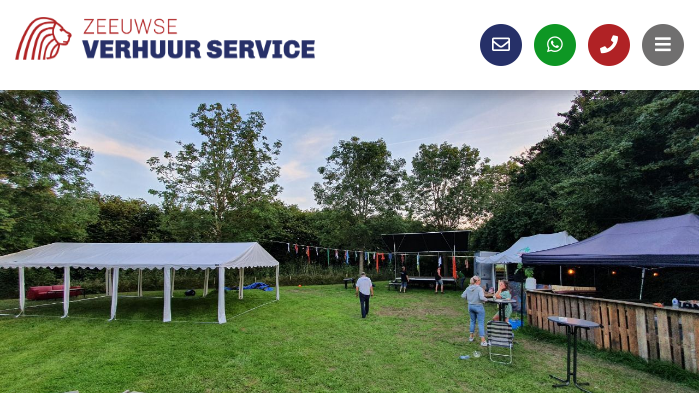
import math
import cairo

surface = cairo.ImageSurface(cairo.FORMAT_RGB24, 699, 393)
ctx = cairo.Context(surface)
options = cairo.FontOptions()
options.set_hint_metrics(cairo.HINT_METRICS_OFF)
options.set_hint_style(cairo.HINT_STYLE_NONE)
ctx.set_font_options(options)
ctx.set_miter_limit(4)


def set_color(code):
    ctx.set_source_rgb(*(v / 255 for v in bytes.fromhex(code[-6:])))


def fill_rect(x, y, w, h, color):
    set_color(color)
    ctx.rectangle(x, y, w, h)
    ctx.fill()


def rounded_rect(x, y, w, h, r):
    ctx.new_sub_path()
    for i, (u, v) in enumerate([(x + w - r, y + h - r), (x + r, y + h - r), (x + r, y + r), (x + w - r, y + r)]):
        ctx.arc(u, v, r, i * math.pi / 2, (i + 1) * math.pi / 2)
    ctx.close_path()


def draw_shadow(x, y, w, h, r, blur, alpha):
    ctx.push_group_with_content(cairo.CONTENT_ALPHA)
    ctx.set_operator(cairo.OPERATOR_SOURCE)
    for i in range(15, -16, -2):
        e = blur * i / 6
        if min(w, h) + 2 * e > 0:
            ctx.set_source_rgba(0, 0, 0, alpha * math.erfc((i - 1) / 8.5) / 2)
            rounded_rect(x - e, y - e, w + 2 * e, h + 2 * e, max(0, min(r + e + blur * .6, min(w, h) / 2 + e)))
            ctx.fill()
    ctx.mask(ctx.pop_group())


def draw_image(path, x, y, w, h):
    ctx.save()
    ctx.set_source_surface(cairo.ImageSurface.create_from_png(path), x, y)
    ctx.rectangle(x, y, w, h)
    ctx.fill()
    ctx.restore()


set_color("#ffffff")
ctx.paint()
draw_image("assets/img6.png", 0, 90, 699, 303)
set_color("#000000")
draw_shadow(0, 5, 699, 90, 0, 6.5, 0.24)
fill_rect(0, 0, 699, 90, "#ffffff")
draw_image("assets/img1.png", 15, 17, 300, 43)
set_color("#263068")
ctx.arc(501, 45, 21, 0, 2 * math.pi)
ctx.fill()
draw_image("assets/img2.png", 492, 37, 18, 14)
set_color("#0e9724")
ctx.arc(555, 45, 21, 0, 2 * math.pi)
ctx.fill()
draw_image("assets/img3.png", 547, 36, 16, 17)
set_color("#b02225")
ctx.arc(609, 45, 21, 0, 2 * math.pi)
ctx.fill()
draw_image("assets/img4.png", 600, 35, 18, 19)
set_color("#706f6f")
ctx.arc(663, 45, 21, 0, 2 * math.pi)
ctx.fill()
draw_image("assets/img5.png", 655, 37, 16, 15)
surface.write_to_png("output.png")
